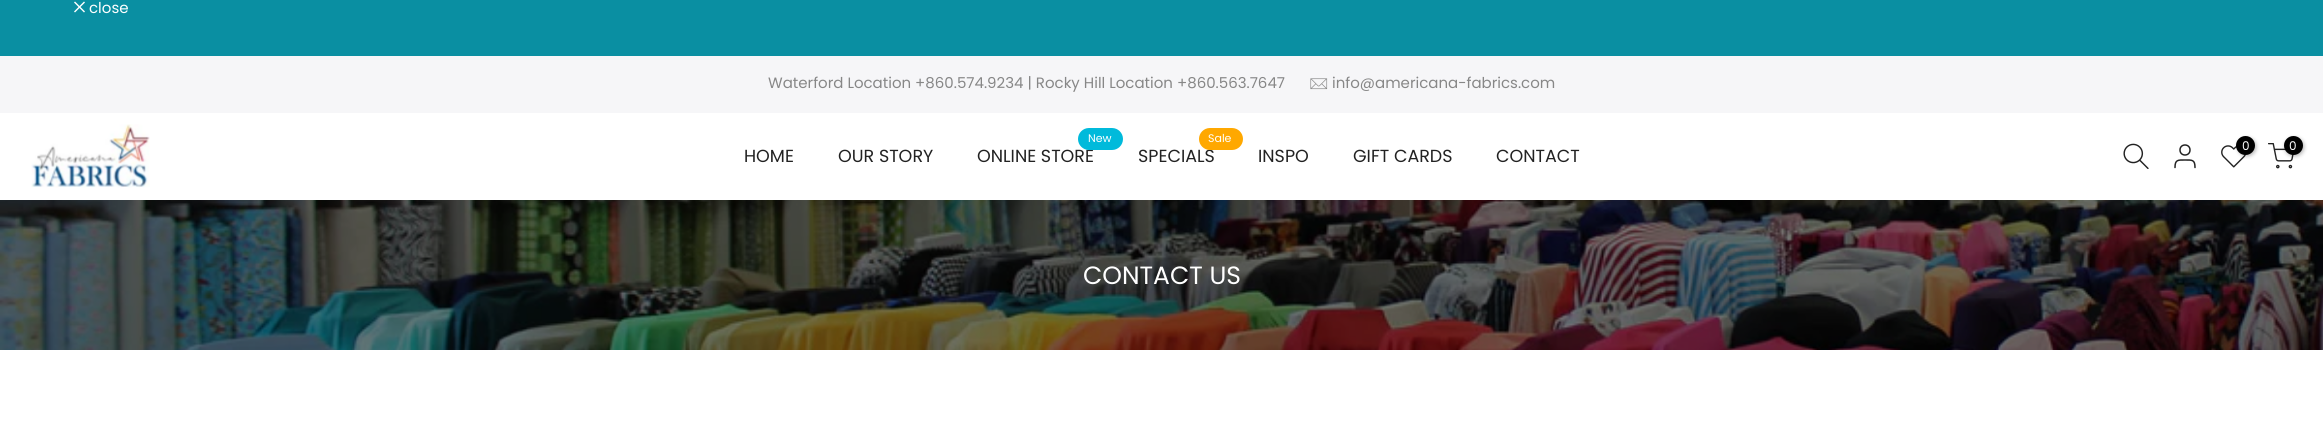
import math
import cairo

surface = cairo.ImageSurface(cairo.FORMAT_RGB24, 2323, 432)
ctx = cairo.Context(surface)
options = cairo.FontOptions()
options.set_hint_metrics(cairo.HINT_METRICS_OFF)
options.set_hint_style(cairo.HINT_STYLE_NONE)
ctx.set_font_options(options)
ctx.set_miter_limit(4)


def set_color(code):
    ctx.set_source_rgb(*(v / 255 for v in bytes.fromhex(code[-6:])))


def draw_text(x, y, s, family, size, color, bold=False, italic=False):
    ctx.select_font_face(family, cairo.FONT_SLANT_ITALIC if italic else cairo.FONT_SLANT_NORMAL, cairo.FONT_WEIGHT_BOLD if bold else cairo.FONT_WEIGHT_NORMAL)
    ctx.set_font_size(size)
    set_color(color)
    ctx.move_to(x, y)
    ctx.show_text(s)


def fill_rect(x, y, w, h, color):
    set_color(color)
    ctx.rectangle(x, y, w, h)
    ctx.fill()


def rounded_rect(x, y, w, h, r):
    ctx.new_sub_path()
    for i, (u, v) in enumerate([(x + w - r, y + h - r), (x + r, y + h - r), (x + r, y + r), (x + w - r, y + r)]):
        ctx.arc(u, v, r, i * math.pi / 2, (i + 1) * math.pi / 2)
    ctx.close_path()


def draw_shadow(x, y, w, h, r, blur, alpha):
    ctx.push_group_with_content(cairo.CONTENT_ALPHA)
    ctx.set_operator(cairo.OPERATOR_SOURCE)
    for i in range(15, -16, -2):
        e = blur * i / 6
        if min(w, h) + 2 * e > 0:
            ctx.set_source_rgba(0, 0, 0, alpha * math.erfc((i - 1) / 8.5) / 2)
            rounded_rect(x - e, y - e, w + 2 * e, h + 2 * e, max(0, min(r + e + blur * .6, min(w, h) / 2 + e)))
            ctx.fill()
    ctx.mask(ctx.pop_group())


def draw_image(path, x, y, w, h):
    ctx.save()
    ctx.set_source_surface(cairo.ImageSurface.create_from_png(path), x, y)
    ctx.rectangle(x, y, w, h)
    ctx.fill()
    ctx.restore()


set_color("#ffffff")
ctx.paint()
fill_rect(0, 0, 2323, 56, "#0a8fa2")
ctx.new_path()
ctx.move_to(84.5, 2)
ctx.line_to(74.5, 12)
ctx.move_to(84.5, 12)
ctx.line_to(74.5, 2)
set_color("#ffffff")
ctx.set_line_width(1.4)
ctx.stroke()
draw_text(89, 13, "close", "Poppins", 15, "#ffffff")
fill_rect(0, 56, 2323, 57, "#f6f6f8")
draw_text(768, 88, "Waterford Location +860.574.9234 | Rocky Hill Location +860.563.7647", "Poppins", 15, "#878787")
draw_image("assets/img1.png", 1310, 78, 18, 12)
draw_text(1332, 88, "info@americana-fabrics.com", "Poppins", 15, "#878787")
draw_image("assets/img2.png", 31, 124, 119, 64)
draw_text(744, 162, "HOME", "Poppins", 17.5, "#222222")
draw_text(838, 162, "OUR STORY", "Poppins", 17.5, "#222222")
draw_text(977, 162, "ONLINE STORE", "Poppins", 17.5, "#222222")
set_color("#00badb")
rounded_rect(1078, 128, 45, 22, 11)
ctx.fill()
draw_text(1088, 142, "New", "Poppins", 11, "#ffffff")
draw_text(1138, 162, "SPECIALS", "Poppins", 17.5, "#222222")
set_color("#ffa800")
rounded_rect(1199, 128, 44, 22, 11)
ctx.fill()
draw_text(1208, 142, "Sale", "Poppins", 11, "#ffffff")
draw_text(1258, 162, "INSPO", "Poppins", 17.5, "#222222")
draw_text(1353, 162, "GIFT CARDS", "Poppins", 17.5, "#222222")
draw_text(1496, 162, "CONTACT", "Poppins", 17.5, "#222222")
draw_image("assets/img3.png", 2123, 143, 26, 26)
ctx.arc(2185, 150, 5, 0, 2 * math.pi)
ctx.set_line_width(1.5)
ctx.stroke()
ctx.new_path()
ctx.move_to(2195, 167.5)
ctx.curve_to(2195, 159.5, 2192, 160, 2185, 160)
ctx.curve_to(2178, 160, 2175, 159.5, 2175, 167.5)
ctx.set_line_cap(cairo.LINE_CAP_ROUND)
ctx.set_line_join(cairo.LINE_JOIN_ROUND)
ctx.stroke()
draw_image("assets/img4.png", 2221, 145, 26, 23)
set_color("#000000")
draw_shadow(2238, 138, 18, 18, 9, 2, 0.3)
set_color("#000000")
ctx.arc(2245.5, 145.5, 9.5, 0, 2 * math.pi)
ctx.fill()
draw_text(2242, 150, "0", "Poppins", 12, "#ffffff")
draw_image("assets/img5.png", 2268, 143, 26, 26)
set_color("#000000")
draw_shadow(2285, 138, 19, 18, 9, 2, 0.3)
set_color("#000000")
ctx.arc(2293.5, 145.5, 9.5, 0, 2 * math.pi)
ctx.fill()
draw_text(2289, 150, "0", "Poppins", 12, "#ffffff")
draw_image("assets/img6.png", 0, 200, 2323, 150)
draw_text(1083, 284, "CONTACT US", "Poppins", 25, "#ffffff")
surface.write_to_png("output.png")
